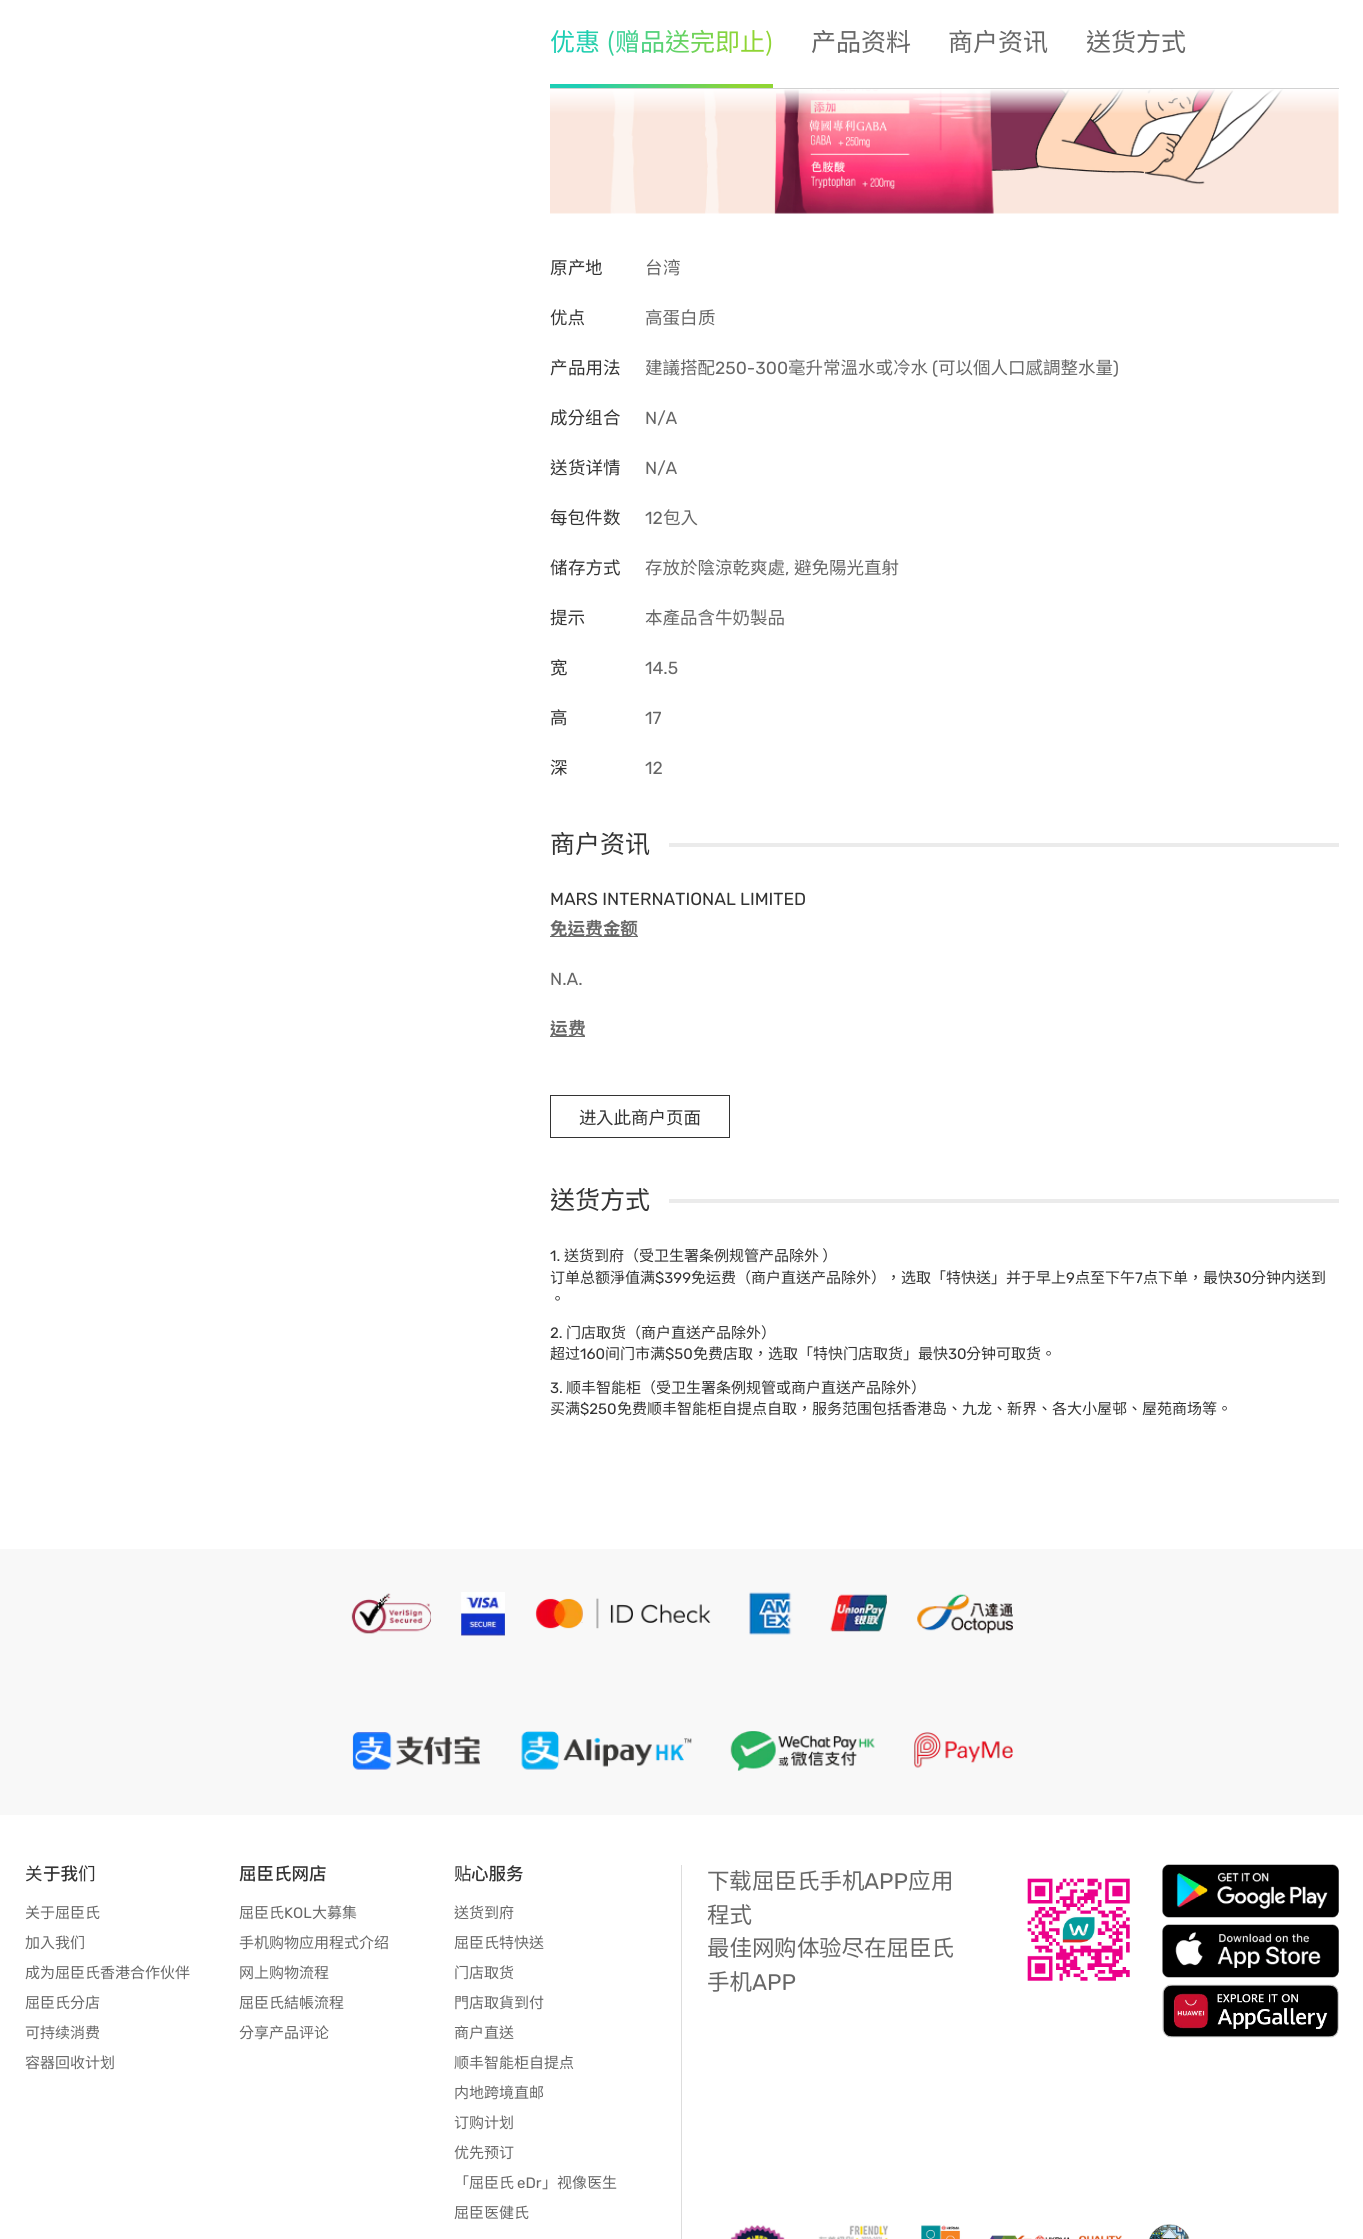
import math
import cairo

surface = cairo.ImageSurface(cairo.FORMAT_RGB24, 1363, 2239)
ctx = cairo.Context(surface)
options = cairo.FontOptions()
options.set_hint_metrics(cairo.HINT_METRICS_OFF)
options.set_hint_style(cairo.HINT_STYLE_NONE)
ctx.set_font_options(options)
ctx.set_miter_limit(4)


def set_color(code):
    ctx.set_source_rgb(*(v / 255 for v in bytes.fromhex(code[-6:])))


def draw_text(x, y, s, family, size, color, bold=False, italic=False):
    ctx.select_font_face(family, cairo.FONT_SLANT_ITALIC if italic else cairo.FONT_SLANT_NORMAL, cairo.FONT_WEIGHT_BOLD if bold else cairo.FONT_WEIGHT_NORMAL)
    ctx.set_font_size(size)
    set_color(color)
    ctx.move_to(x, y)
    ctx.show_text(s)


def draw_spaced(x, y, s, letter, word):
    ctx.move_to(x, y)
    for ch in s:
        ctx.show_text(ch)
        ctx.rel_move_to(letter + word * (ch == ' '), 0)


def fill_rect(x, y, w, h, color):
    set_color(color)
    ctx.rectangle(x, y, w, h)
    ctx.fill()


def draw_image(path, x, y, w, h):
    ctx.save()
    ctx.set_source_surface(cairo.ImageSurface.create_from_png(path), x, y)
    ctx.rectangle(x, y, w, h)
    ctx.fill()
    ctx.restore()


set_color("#ffffff")
ctx.paint()
draw_image("assets/img1.png", 550, 89, 789, 125)
gradient = cairo.LinearGradient(944, 0, 944, 114)
gradient.add_color_stop_rgba(0, 1, 1, 1, 1)
gradient.add_color_stop_rgba(0.78, 1, 1, 1, 1)
gradient.add_color_stop_rgba(1, 1, 1, 1, 0)
ctx.set_source(gradient)
ctx.rectangle(550, 89, 789, 24)
ctx.fill()
fill_rect(550, 88, 789, 1, "#d2d2d2")
ctx.select_font_face("Noto Sans TC")
ctx.set_font_size(25)
gradient = cairo.LinearGradient(550, 34, 773, 51)
gradient.add_color_stop_rgba(0.14, 0.114, 0.808, 0.706, 1)
gradient.add_color_stop_rgba(0.85, 0.561, 0.835, 0.204, 1)
ctx.set_source(gradient)
draw_spaced(550, 51, "优惠 (", 0, 1)
ctx.select_font_face("Noto Sans CJK SC")
ctx.move_to(615, 51)
ctx.show_text("赠")
ctx.select_font_face("Noto Sans TC")
ctx.move_to(640, 51)
ctx.show_text("品送完即止)")
gradient = cairo.LinearGradient(550, 78, 772, 95)
gradient.add_color_stop_rgba(0.14, 0.114, 0.808, 0.706, 1)
gradient.add_color_stop_rgba(0.85, 0.561, 0.835, 0.204, 1)
ctx.set_source(gradient)
ctx.rectangle(550, 84, 223, 4)
ctx.fill()
draw_text(811, 51, "产", "Noto Sans CJK SC", 25, "#676767")
draw_text(836, 51, "品", "Noto Sans TC", 25, "#676767")
draw_text(861, 51, "资", "Noto Sans CJK SC", 25, "#676767")
draw_text(886, 51, "料", "Noto Sans TC", 25, "#676767")
draw_text(948, 51, "商户", "Noto Sans TC", 25, "#676767")
draw_text(998, 51, "资讯", "Noto Sans CJK SC", 25, "#676767")
draw_text(1086, 51, "送", "Noto Sans TC", 25, "#676767")
draw_text(1111, 51, "货", "Noto Sans CJK SC", 25, "#676767")
draw_text(1136, 51, "方式", "Noto Sans TC", 25, "#676767")
draw_text(550, 274, "原", "Noto Sans TC", 17.5, "#333333")
draw_text(568, 274, "产", "Noto Sans CJK SC", 17.5, "#333333")
draw_text(585, 274, "地", "Noto Sans TC", 17.5, "#333333")
draw_text(645, 274, "台", "Noto Sans TC", 17.5, "#676767")
draw_text(663, 274, "湾", "Noto Sans CJK SC", 17.5, "#676767")
draw_text(550, 324, "优点", "Noto Sans TC", 17.5, "#333333")
draw_text(645, 324, "高蛋白", "Noto Sans TC", 17.5, "#676767")
draw_text(698, 324, "质", "Noto Sans CJK SC", 17.5, "#676767")
draw_text(550, 374, "产", "Noto Sans CJK SC", 17.5, "#333333")
draw_text(568, 374, "品用法", "Noto Sans TC", 17.5, "#333333")
draw_text(645, 374, "建議搭配", "Noto Sans TC", 17.5, "#676767")
draw_text(715, 374, "250-300", "Rubik", 17.5, "#676767")
draw_text(788, 374, "毫升常溫水或冷水", "Noto Sans TC", 17.5, "#676767")
draw_text(932, 374, "(", "Rubik", 17.5, "#676767")
draw_text(938, 374, "可以個人口感調整水量", "Noto Sans TC", 17.5, "#676767")
draw_text(1113, 374, ")", "Rubik", 17.5, "#676767")
draw_text(550, 424, "成分", "Noto Sans TC", 17.5, "#333333")
draw_text(585, 424, "组", "Noto Sans CJK SC", 17.5, "#333333")
draw_text(603, 424, "合", "Noto Sans TC", 17.5, "#333333")
draw_text(645, 424, "N/A", "Rubik", 17.5, "#676767")
draw_text(550, 474, "送", "Noto Sans TC", 17.5, "#333333")
draw_text(568, 474, "货详", "Noto Sans CJK SC", 17.5, "#333333")
draw_text(603, 474, "情", "Noto Sans TC", 17.5, "#333333")
draw_text(645, 474, "N/A", "Rubik", 17.5, "#676767")
draw_text(550, 524, "每包件", "Noto Sans TC", 17.5, "#333333")
draw_text(603, 524, "数", "Noto Sans CJK SC", 17.5, "#333333")
draw_text(645, 524, "12", "Rubik", 17.5, "#676767")
draw_text(663, 524, "包入", "Noto Sans TC", 17.5, "#676767")
draw_text(550, 574, "储", "Noto Sans CJK SC", 17.5, "#333333")
draw_text(568, 574, "存方式", "Noto Sans TC", 17.5, "#333333")
draw_text(645, 574, "存放於陰涼乾爽處", "Noto Sans TC", 17.5, "#676767")
draw_text(785, 574, ",", "Rubik", 17.5, "#676767")
draw_text(794, 574, "避免陽光直射", "Noto Sans TC", 17.5, "#676767")
draw_text(550, 624, "提示", "Noto Sans TC", 17.5, "#333333")
draw_text(645, 624, "本產品含牛奶製品", "Noto Sans TC", 17.5, "#676767")
draw_text(550, 674, "宽", "Noto Sans CJK SC", 17.5, "#333333")
draw_text(645, 674, "14.5", "Rubik", 17.5, "#676767")
draw_text(550, 724, "高", "Noto Sans TC", 17.5, "#333333")
draw_text(645, 724, "17", "Rubik", 17.5, "#676767")
draw_text(550, 774, "深", "Noto Sans TC", 17.5, "#333333")
draw_text(645, 774, "12", "Rubik", 17.5, "#676767")
draw_text(550, 853, "商户", "Noto Sans TC", 25, "#333333")
draw_text(600, 853, "资讯", "Noto Sans CJK SC", 25, "#333333")
fill_rect(669, 843, 670, 4, "#ebebeb")
draw_text(550, 905, "MARS INTERNATIONAL LIMITED", "Rubik", 17.5, "#333333")
fill_rect(550, 936, 88, 1, "#676767")
draw_text(550, 935, "免运", "Noto Sans TC", 17.5, "#676767", bold=True)
draw_text(585, 935, "费", "Noto Sans CJK SC", 17.5, "#676767", bold=True)
draw_text(603, 935, "金", "Noto Sans TC", 17.5, "#676767", bold=True)
draw_text(620, 935, "额", "Noto Sans CJK SC", 17.5, "#676767", bold=True)
draw_text(550, 985, "N.A.", "Rubik", 17.5, "#676767")
fill_rect(550, 1036, 35, 1, "#676767")
draw_text(550, 1035, "运", "Noto Sans TC", 17.5, "#676767", bold=True)
draw_text(568, 1035, "费", "Noto Sans CJK SC", 17.5, "#676767", bold=True)
ctx.rectangle(550.5, 1095.5, 179, 42)
set_color("#333333")
ctx.set_line_width(1)
ctx.stroke()
draw_text(579, 1124, "进", "Noto Sans CJK SC", 17.5, "#333333")
draw_text(596, 1124, "入此商户页面", "Noto Sans TC", 17.5, "#333333")
draw_text(550, 1209, "送", "Noto Sans TC", 25, "#333333")
draw_text(575, 1209, "货", "Noto Sans CJK SC", 25, "#333333")
draw_text(600, 1209, "方式", "Noto Sans TC", 25, "#333333")
fill_rect(669, 1199, 670, 4, "#ebebeb")
draw_text(550, 1261, "1.", "Rubik", 15, "#333333")
draw_text(564, 1261, "送", "Noto Sans TC", 15, "#333333")
draw_text(579, 1261, "货", "Noto Sans CJK SC", 15, "#333333")
draw_text(594, 1261, "到府（受", "Noto Sans TC", 15, "#333333")
draw_text(654, 1261, "卫", "Noto Sans CJK SC", 15, "#333333")
draw_text(669, 1261, "生署条例", "Noto Sans TC", 15, "#333333")
draw_text(729, 1261, "规", "Noto Sans CJK SC", 15, "#333333")
draw_text(744, 1261, "管", "Noto Sans TC", 15, "#333333")
draw_text(759, 1261, "产", "Noto Sans CJK SC", 15, "#333333")
draw_text(774, 1261, "品除外 ）", "Noto Sans TC", 15, "#333333")
draw_text(550, 1283, "订单", "Noto Sans CJK SC", 15, "#333333")
draw_text(580, 1283, "总", "Noto Sans TC", 15, "#333333")
draw_text(595, 1283, "额", "Noto Sans CJK SC", 15, "#333333")
draw_text(610, 1283, "淨值", "Noto Sans TC", 15, "#333333")
draw_text(640, 1283, "满", "Noto Sans CJK SC", 15, "#333333")
draw_text(655, 1283, "$399", "Rubik", 15, "#333333")
draw_text(691, 1283, "免运", "Noto Sans TC", 15, "#333333")
draw_text(721, 1283, "费", "Noto Sans CJK SC", 15, "#333333")
draw_text(736, 1283, "（商户直送", "Noto Sans TC", 15, "#333333")
draw_text(811, 1283, "产", "Noto Sans CJK SC", 15, "#333333")
draw_text(826, 1283, "品除外），", "Noto Sans TC", 15, "#333333")
draw_text(901, 1283, "选", "Noto Sans CJK SC", 15, "#333333")
draw_text(916, 1283, "取「特快送」并于早上", "Noto Sans TC", 15, "#333333")
draw_text(1066, 1283, "9", "Rubik", 15, "#333333")
draw_text(1075, 1283, "点至下午", "Noto Sans TC", 15, "#333333")
draw_text(1135, 1283, "7", "Rubik", 15, "#333333")
draw_text(1143, 1283, "点下", "Noto Sans TC", 15, "#333333")
draw_text(1173, 1283, "单", "Noto Sans CJK SC", 15, "#333333")
draw_text(1188, 1283, "，最快", "Noto Sans TC", 15, "#333333")
draw_text(1233, 1283, "30", "Rubik", 15, "#333333")
draw_text(1251, 1283, "分钟", "Noto Sans TC", 15, "#333333")
draw_text(1281, 1283, "内", "Noto Sans CJK SC", 15, "#333333")
draw_text(1296, 1283, "送到", "Noto Sans TC", 15, "#333333")
draw_text(550, 1304, "。", "Noto Sans TC", 15, "#333333")
draw_text(550, 1338, "2.", "Rubik", 15, "#333333")
draw_text(566, 1338, "门店取", "Noto Sans TC", 15, "#333333")
draw_text(611, 1338, "货", "Noto Sans CJK SC", 15, "#333333")
draw_text(626, 1338, "（商户直送", "Noto Sans TC", 15, "#333333")
draw_text(701, 1338, "产", "Noto Sans CJK SC", 15, "#333333")
draw_text(716, 1338, "品除外）", "Noto Sans TC", 15, "#333333")
draw_text(550, 1359, "超", "Noto Sans TC", 15, "#333333")
draw_text(565, 1359, "过", "Noto Sans CJK SC", 15, "#333333")
draw_text(580, 1359, "160", "Rubik", 15, "#333333")
draw_text(605, 1359, "间门市", "Noto Sans TC", 15, "#333333")
draw_text(650, 1359, "满", "Noto Sans CJK SC", 15, "#333333")
draw_text(665, 1359, "$50", "Rubik", 15, "#333333")
draw_text(693, 1359, "免", "Noto Sans TC", 15, "#333333")
draw_text(708, 1359, "费", "Noto Sans CJK SC", 15, "#333333")
draw_text(723, 1359, "店取，", "Noto Sans TC", 15, "#333333")
draw_text(768, 1359, "选", "Noto Sans CJK SC", 15, "#333333")
draw_text(783, 1359, "取「特快门店取", "Noto Sans TC", 15, "#333333")
draw_text(888, 1359, "货", "Noto Sans CJK SC", 15, "#333333")
draw_text(903, 1359, "」最快", "Noto Sans TC", 15, "#333333")
draw_text(948, 1359, "30", "Rubik", 15, "#333333")
draw_text(966, 1359, "分钟可取", "Noto Sans TC", 15, "#333333")
draw_text(1026, 1359, "货", "Noto Sans CJK SC", 15, "#333333")
draw_text(1041, 1359, "。", "Noto Sans TC", 15, "#333333")
draw_text(550, 1393, "3.", "Rubik", 15, "#333333")
draw_text(566, 1393, "顺", "Noto Sans CJK SC", 15, "#333333")
draw_text(581, 1393, "丰智能柜（受", "Noto Sans TC", 15, "#333333")
draw_text(671, 1393, "卫", "Noto Sans CJK SC", 15, "#333333")
draw_text(686, 1393, "生署条例", "Noto Sans TC", 15, "#333333")
draw_text(746, 1393, "规", "Noto Sans CJK SC", 15, "#333333")
draw_text(761, 1393, "管或商户直送", "Noto Sans TC", 15, "#333333")
draw_text(851, 1393, "产", "Noto Sans CJK SC", 15, "#333333")
draw_text(866, 1393, "品除外）", "Noto Sans TC", 15, "#333333")
draw_text(550, 1414, "买满", "Noto Sans CJK SC", 15, "#333333")
draw_text(580, 1414, "$250", "Rubik", 15, "#333333")
draw_text(617, 1414, "免", "Noto Sans TC", 15, "#333333")
draw_text(632, 1414, "费顺", "Noto Sans CJK SC", 15, "#333333")
draw_text(662, 1414, "丰智能柜自提点自取，服务范", "Noto Sans TC", 15, "#333333")
draw_text(857, 1414, "围", "Noto Sans CJK SC", 15, "#333333")
draw_text(872, 1414, "包括香港", "Noto Sans TC", 15, "#333333")
draw_text(932, 1414, "岛", "Noto Sans CJK SC", 15, "#333333")
draw_text(947, 1414, "、九龙、新界、各大小屋邨、屋苑商", "Noto Sans TC", 15, "#333333")
draw_text(1187, 1414, "场", "Noto Sans CJK SC", 15, "#333333")
draw_text(1202, 1414, "等。", "Noto Sans TC", 15, "#333333")
fill_rect(0, 1549, 1363, 266, "#f8f8f8")
draw_image("assets/img2.png", 351, 1592, 662, 44)
draw_image("assets/img3.png", 352, 1731, 661, 40)
fill_rect(681, 1865, 1, 374, "#dddddd")
draw_text(25, 1880, "关", "Noto Sans CJK SC", 17.5, "#333333")
draw_text(43, 1880, "于我", "Noto Sans TC Medium", 17.5, "#333333")
draw_text(78, 1880, "们", "Noto Sans CJK SC", 17.5, "#333333")
draw_text(25, 1918, "关", "Noto Sans CJK SC", 15, "#676767")
draw_text(40, 1918, "于屈臣氏", "Noto Sans TC", 15, "#676767")
draw_text(25, 1948, "加入我", "Noto Sans TC", 15, "#676767")
draw_text(70, 1948, "们", "Noto Sans CJK SC", 15, "#676767")
draw_text(25, 1978, "成", "Noto Sans TC", 15, "#676767")
draw_text(40, 1978, "为", "Noto Sans CJK SC", 15, "#676767")
draw_text(55, 1978, "屈臣氏香港合作伙伴", "Noto Sans TC", 15, "#676767")
draw_text(25, 2008, "屈臣氏分店", "Noto Sans TC", 15, "#676767")
draw_text(25, 2038, "可持", "Noto Sans TC", 15, "#676767")
draw_text(55, 2038, "续", "Noto Sans CJK SC", 15, "#676767")
draw_text(70, 2038, "消", "Noto Sans TC", 15, "#676767")
draw_text(85, 2038, "费", "Noto Sans CJK SC", 15, "#676767")
draw_text(25, 2068, "容器回收", "Noto Sans TC", 15, "#676767")
draw_text(85, 2068, "计", "Noto Sans CJK SC", 15, "#676767")
draw_text(100, 2068, "划", "Noto Sans TC", 15, "#676767")
draw_text(239, 1880, "屈臣氏网店", "Noto Sans TC Medium", 17.5, "#333333")
draw_text(239, 1918, "屈臣氏", "Noto Sans TC", 15, "#676767")
draw_text(284, 1918, "KOL", "Rubik", 15, "#676767")
draw_text(312, 1918, "大募集", "Noto Sans TC", 15, "#676767")
draw_text(239, 1948, "手机", "Noto Sans TC", 15, "#676767")
draw_text(269, 1948, "购", "Noto Sans CJK SC", 15, "#676767")
draw_text(284, 1948, "物", "Noto Sans TC", 15, "#676767")
draw_text(299, 1948, "应", "Noto Sans CJK SC", 15, "#676767")
draw_text(314, 1948, "用程式介", "Noto Sans TC", 15, "#676767")
draw_text(374, 1948, "绍", "Noto Sans CJK SC", 15, "#676767")
draw_text(239, 1978, "网上", "Noto Sans TC", 15, "#676767")
draw_text(269, 1978, "购", "Noto Sans CJK SC", 15, "#676767")
draw_text(284, 1978, "物流程", "Noto Sans TC", 15, "#676767")
draw_text(239, 2008, "屈臣氏結帳流程", "Noto Sans TC", 15, "#676767")
draw_text(239, 2038, "分享", "Noto Sans TC", 15, "#676767")
draw_text(269, 2038, "产", "Noto Sans CJK SC", 15, "#676767")
draw_text(284, 2038, "品", "Noto Sans TC", 15, "#676767")
draw_text(299, 2038, "评论", "Noto Sans CJK SC", 15, "#676767")
draw_text(454, 1880, "贴", "Noto Sans CJK SC", 17.5, "#333333")
draw_text(471, 1880, "心服务", "Noto Sans TC Medium", 17.5, "#333333")
draw_text(454, 1918, "送", "Noto Sans TC", 15, "#676767")
draw_text(469, 1918, "货", "Noto Sans CJK SC", 15, "#676767")
draw_text(484, 1918, "到府", "Noto Sans TC", 15, "#676767")
draw_text(454, 1948, "屈臣氏特快送", "Noto Sans TC", 15, "#676767")
draw_text(454, 1978, "门店取", "Noto Sans TC", 15, "#676767")
draw_text(499, 1978, "货", "Noto Sans CJK SC", 15, "#676767")
draw_text(454, 2008, "門店取貨到付", "Noto Sans TC", 15, "#676767")
draw_text(454, 2038, "商户直送", "Noto Sans TC", 15, "#676767")
draw_text(454, 2068, "顺", "Noto Sans CJK SC", 15, "#676767")
draw_text(469, 2068, "丰智能柜自提点", "Noto Sans TC", 15, "#676767")
draw_text(454, 2098, "内", "Noto Sans CJK SC", 15, "#676767")
draw_text(469, 2098, "地跨境直邮", "Noto Sans TC", 15, "#676767")
draw_text(454, 2128, "订购计", "Noto Sans CJK SC", 15, "#676767")
draw_text(499, 2128, "划", "Noto Sans TC", 15, "#676767")
draw_text(454, 2158, "优先", "Noto Sans TC", 15, "#676767")
draw_text(484, 2158, "预订", "Noto Sans CJK SC", 15, "#676767")
draw_text(454, 2188, "「屈臣氏", "Noto Sans TC", 15, "#676767")
draw_text(517, 2188, "eDr", "Rubik", 15, "#676767")
draw_text(542, 2188, "」视像医生", "Noto Sans TC", 15, "#676767")
draw_text(454, 2218, "屈臣医健氏", "Noto Sans TC", 15, "#676767")
draw_text(707, 1889, "下", "Noto Sans TC", 22.5, "#676767")
draw_text(729, 1889, "载", "Noto Sans CJK SC", 22.5, "#676767")
draw_text(752, 1889, "屈臣氏手机", "Noto Sans TC", 22.5, "#676767")
draw_text(864, 1889, "APP", "Rubik", 22.5, "#676767")
draw_text(908, 1889, "应", "Noto Sans CJK SC", 22.5, "#676767")
draw_text(931, 1889, "用", "Noto Sans TC", 22.5, "#676767")
draw_text(707, 1923, "程式", "Noto Sans TC", 22.5, "#676767")
draw_text(707, 1956, "最佳网", "Noto Sans TC", 22.5, "#676767")
draw_text(774, 1956, "购", "Noto Sans CJK SC", 22.5, "#676767")
draw_text(797, 1956, "体", "Noto Sans TC", 22.5, "#676767")
draw_text(819, 1956, "验尽", "Noto Sans CJK SC", 22.5, "#676767")
draw_text(864, 1956, "在屈臣氏", "Noto Sans TC", 22.5, "#676767")
draw_text(707, 1990, "手机", "Noto Sans TC", 22.5, "#676767")
draw_text(752, 1990, "APP", "Rubik", 22.5, "#676767")
draw_image("assets/img4.png", 1027, 1878, 103, 103)
draw_image("assets/img5.png", 1162, 1864, 177, 54)
draw_image("assets/img6.png", 1162, 1924, 177, 54)
draw_image("assets/img7.png", 1162, 1984, 177, 54)
draw_image("assets/img8.png", 730, 2224, 460, 15)
surface.write_to_png("output.png")
